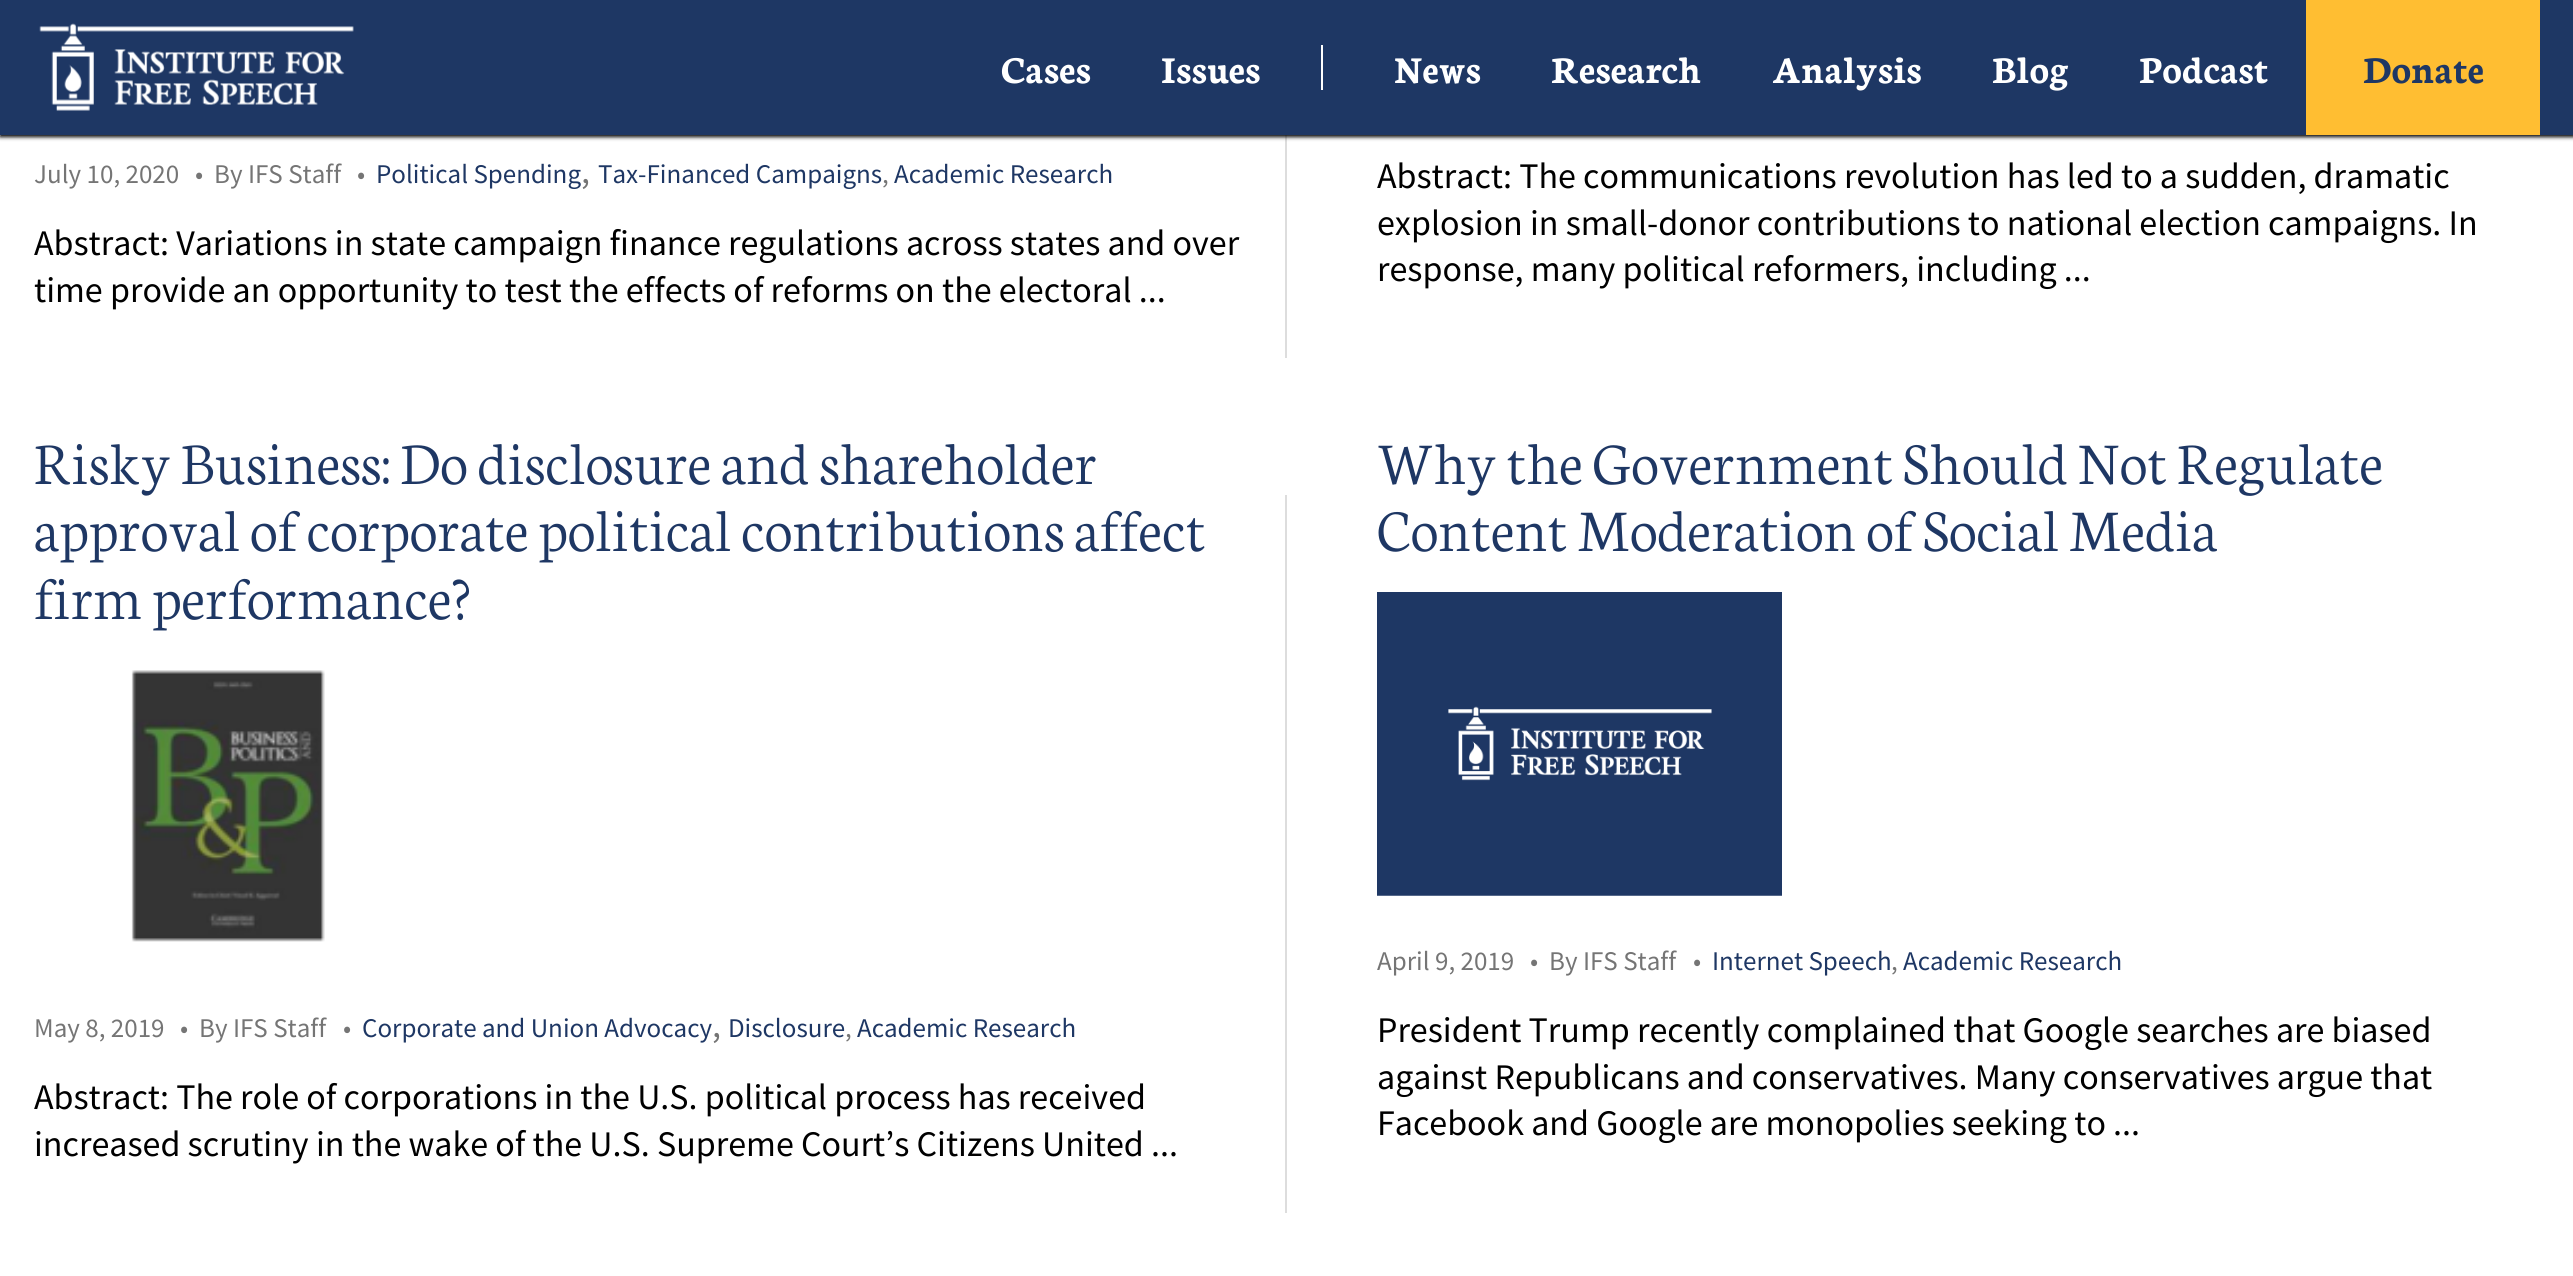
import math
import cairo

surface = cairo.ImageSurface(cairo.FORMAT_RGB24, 2573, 1276)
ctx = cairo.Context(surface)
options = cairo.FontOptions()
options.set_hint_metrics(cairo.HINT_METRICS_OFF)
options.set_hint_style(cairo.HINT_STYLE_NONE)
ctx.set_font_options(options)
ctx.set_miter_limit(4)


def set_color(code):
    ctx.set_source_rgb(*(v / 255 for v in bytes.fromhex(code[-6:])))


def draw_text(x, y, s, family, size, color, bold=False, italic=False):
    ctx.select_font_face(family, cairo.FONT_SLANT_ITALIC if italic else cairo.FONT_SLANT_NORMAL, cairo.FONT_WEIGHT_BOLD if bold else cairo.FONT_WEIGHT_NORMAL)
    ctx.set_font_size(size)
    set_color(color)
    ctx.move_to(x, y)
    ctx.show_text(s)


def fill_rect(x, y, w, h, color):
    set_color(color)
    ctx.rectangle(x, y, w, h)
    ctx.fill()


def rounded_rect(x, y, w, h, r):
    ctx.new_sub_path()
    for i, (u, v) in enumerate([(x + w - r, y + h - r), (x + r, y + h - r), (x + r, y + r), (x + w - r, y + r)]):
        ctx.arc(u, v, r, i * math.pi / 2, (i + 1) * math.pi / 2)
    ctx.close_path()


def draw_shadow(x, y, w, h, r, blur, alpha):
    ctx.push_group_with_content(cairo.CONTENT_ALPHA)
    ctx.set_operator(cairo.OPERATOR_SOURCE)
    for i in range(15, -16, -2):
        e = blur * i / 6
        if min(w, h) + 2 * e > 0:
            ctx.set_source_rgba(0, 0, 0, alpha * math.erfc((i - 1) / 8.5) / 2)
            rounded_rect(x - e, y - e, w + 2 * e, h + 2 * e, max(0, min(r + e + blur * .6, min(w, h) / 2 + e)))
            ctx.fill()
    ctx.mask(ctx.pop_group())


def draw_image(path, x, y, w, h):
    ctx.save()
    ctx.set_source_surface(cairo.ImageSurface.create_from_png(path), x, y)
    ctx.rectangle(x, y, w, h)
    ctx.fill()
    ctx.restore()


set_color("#ffffff")
ctx.paint()
fill_rect(1285, 135, 2, 223, "#dddddd")
set_color("#000000")
draw_shadow(0, 2, 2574, 135, 0, 2, 1)
fill_rect(0, 0, 2573, 135, "#1e3764")
draw_image("assets/img1.png", 39, 23, 315, 88)
draw_text(1001, 83, "Cases", "Neuton", 40.5, "#ffffff", bold=True)
draw_text(1161, 83, "Issues", "Neuton", 40.5, "#ffffff", bold=True)
fill_rect(1321, 45, 2, 45, "#ffffff")
draw_text(1394, 83, "News", "Neuton", 40.5, "#ffffff", bold=True)
draw_text(1551, 83, "Research", "Neuton", 40.5, "#ffffff", bold=True)
draw_text(1772, 83, "Analysis", "Neuton", 40.5, "#ffffff", bold=True)
draw_text(1992, 83, "Blog", "Neuton", 40.5, "#ffffff", bold=True)
draw_text(2139, 83, "Podcast", "Neuton", 40.5, "#ffffff", bold=True)
fill_rect(2306, 0, 234, 135, "#ffbe32")
draw_text(2363, 83, "Donate", "Neuton", 40.5, "#1e3764", bold=True)
draw_text(34, 183, "July 10, 2020", "Source Sans Pro", 27, "#757575")
draw_text(195, 183, "•  By IFS Staff", "Source Sans Pro", 27, "#757575")
draw_text(357, 183, "•", "Source Sans Pro", 27, "#757575")
draw_text(376, 183, "Political Spending", "Source Sans Pro", 27, "#1e3764")
draw_text(598, 183, "Tax-Financed Campaigns", "Source Sans Pro", 27, "#1e3764")
draw_text(894, 183, "Academic Research", "Source Sans Pro", 27, "#1e3764")
draw_text(581, 183, ",", "Source Sans Pro", 36, "#757575")
draw_text(882, 183, ",", "Source Sans Pro", 27, "#757575")
draw_text(34, 255, "Abstract: Variations in state campaign finance regulations across states and over", "Source Sans Pro", 36, "#000000")
draw_text(34, 302, "time provide an opportunity to test the effects of reforms on the electoral ...", "Source Sans Pro", 36, "#000000")
draw_text(1377, 188, "Abstract: The communications revolution has led to a sudden, dramatic", "Source Sans Pro", 36, "#000000")
draw_text(1377, 235, "explosion in small-donor contributions to national election campaigns. In", "Source Sans Pro", 36, "#000000")
draw_text(1377, 281, "response, many political reformers, including ...", "Source Sans Pro", 36, "#000000")
draw_text(34, 484, "Risky Business: Do disclosure and shareholder", "Neuton Light", 63, "#1e3764")
draw_text(34, 551, "approval of corporate political contributions affect", "Neuton Light", 63, "#1e3764")
draw_text(34, 619, "firm performance?", "Neuton Light", 63, "#1e3764")
fill_rect(1285, 495, 2, 718, "#dddddd")
draw_image("assets/img2.png", 131, 670, 194, 272)
draw_text(34, 1037, "May 8, 2019", "Source Sans Pro", 27, "#757575")
draw_text(180, 1037, "•  By IFS Staff", "Source Sans Pro", 27, "#757575")
draw_text(343, 1037, "•", "Source Sans Pro", 27, "#757575")
draw_text(362, 1037, "Corporate and Union Advocacy", "Source Sans Pro", 27, "#1e3764")
draw_text(728, 1037, "Disclosure", "Source Sans Pro", 27, "#1e3764")
draw_text(857, 1037, "Academic Research", "Source Sans Pro", 27, "#1e3764")
draw_text(712, 1037, ",", "Source Sans Pro", 36, "#757575")
draw_text(845, 1037, ",", "Source Sans Pro", 27, "#757575")
draw_text(34, 1109, "Abstract: The role of corporations in the U.S. political process has received", "Source Sans Pro", 36, "#000000")
draw_text(34, 1156, "increased scrutiny in the wake of the U.S. Supreme Court’s Citizens United ...", "Source Sans Pro", 36, "#000000")
draw_text(1377, 484, "Why the Government Should Not Regulate", "Neuton Light", 63, "#1e3764")
draw_text(1377, 551, "Content Moderation of Social Media", "Neuton Light", 63, "#1e3764")
draw_image("assets/img3.png", 1377, 592, 405, 304)
draw_text(1377, 970, "April 9, 2019", "Source Sans Pro", 27, "#757575")
draw_text(1530, 970, "•  By IFS Staff", "Source Sans Pro", 27, "#757575")
draw_text(1693, 970, "•", "Source Sans Pro", 27, "#757575")
draw_text(1712, 970, "Internet Speech", "Source Sans Pro", 27, "#1e3764")
draw_text(1903, 970, "Academic Research", "Source Sans Pro", 27, "#1e3764")
draw_text(1891, 970, ",", "Source Sans Pro", 27, "#757575")
draw_text(1377, 1042, "President Trump recently complained that Google searches are biased", "Source Sans Pro", 36, "#000000")
draw_text(1377, 1089, "against Republicans and conservatives. Many conservatives argue that", "Source Sans Pro", 36, "#000000")
draw_text(1377, 1135, "Facebook and Google are monopolies seeking to ...", "Source Sans Pro", 36, "#000000")
surface.write_to_png("output.png")
